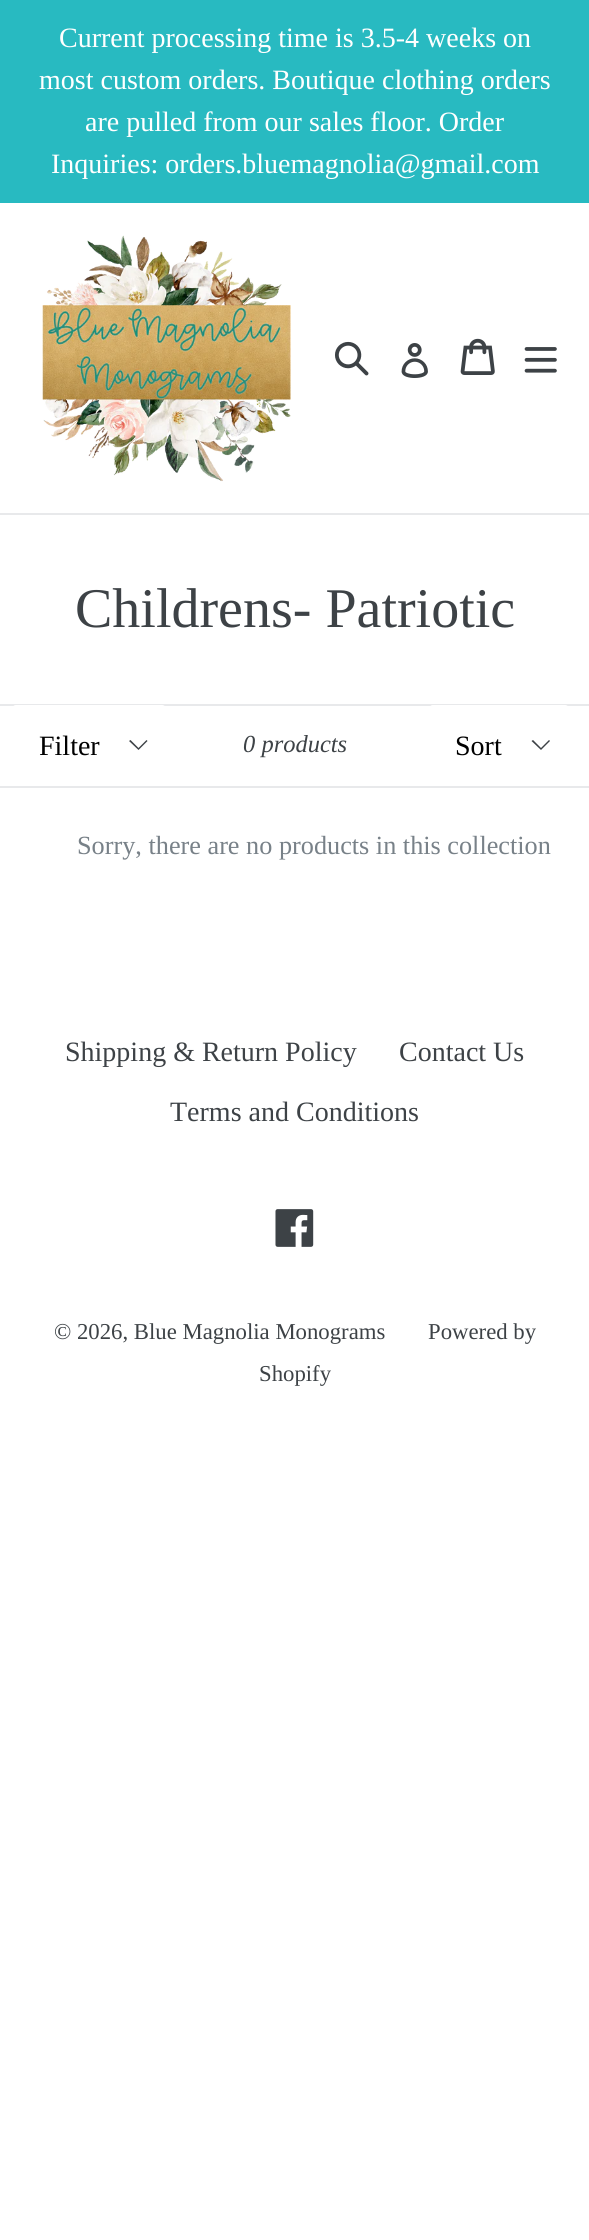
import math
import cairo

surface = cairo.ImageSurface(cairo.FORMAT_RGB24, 589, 2240)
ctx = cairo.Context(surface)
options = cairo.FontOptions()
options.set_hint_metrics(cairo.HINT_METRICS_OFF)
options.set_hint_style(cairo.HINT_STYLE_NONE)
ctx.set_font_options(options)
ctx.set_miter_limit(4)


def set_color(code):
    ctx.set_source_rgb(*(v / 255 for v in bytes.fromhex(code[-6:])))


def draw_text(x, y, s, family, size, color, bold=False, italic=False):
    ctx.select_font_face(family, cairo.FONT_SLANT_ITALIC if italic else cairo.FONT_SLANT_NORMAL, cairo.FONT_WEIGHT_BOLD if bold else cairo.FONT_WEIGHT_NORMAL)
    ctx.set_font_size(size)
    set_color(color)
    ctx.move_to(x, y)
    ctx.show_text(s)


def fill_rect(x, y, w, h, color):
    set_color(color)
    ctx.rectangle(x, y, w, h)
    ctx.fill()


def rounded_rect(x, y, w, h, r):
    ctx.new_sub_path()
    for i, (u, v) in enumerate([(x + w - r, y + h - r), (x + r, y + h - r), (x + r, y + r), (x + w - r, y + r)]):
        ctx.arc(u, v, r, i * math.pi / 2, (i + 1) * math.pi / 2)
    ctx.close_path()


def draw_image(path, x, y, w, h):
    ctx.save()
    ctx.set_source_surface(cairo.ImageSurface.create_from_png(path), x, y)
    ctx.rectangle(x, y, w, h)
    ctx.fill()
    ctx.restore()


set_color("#ffffff")
ctx.paint()
fill_rect(0, 0, 589, 203, "#28bac1")
draw_text(59, 47, "Current processing time is 3.5-4 weeks on", "Liberation Serif", 28, "#ffffff")
draw_text(39, 89, "most custom orders. Boutique clothing orders", "Liberation Serif", 28, "#ffffff")
draw_text(85, 131, "are pulled from our sales floor. Order", "Liberation Serif", 28, "#ffffff")
draw_text(51, 173, "Inquiries: orders.bluemagnolia@gmail.com", "Liberation Serif", 28, "#ffffff")
fill_rect(0, 513, 589, 2, "#e8e9eb")
draw_image("assets/img1.png", 42, 235, 249, 247)
draw_image("assets/img2.png", 335, 341, 34, 35)
draw_image("assets/img3.png", 401, 343, 27, 35)
draw_image("assets/img4.png", 460, 338, 35, 37)
draw_image("assets/img5.png", 524, 347, 33, 26)
draw_text(75, 627, "Childrens- Patriotic", "Liberation Serif", 56, "#3d4246")
fill_rect(0, 704, 589, 2, "#e8e9eb")
fill_rect(0, 786, 589, 2, "#e8e9eb")
set_color("#ffffff")
rounded_rect(12, 705, 154, 81, 4)
ctx.fill()
set_color("#3d4246")
ctx.new_path()
ctx.move_to(138.5, 750)
ctx.line_to(129, 741)
ctx.line_to(130.5, 740)
ctx.line_to(138.5, 748)
ctx.line_to(146.5, 740)
ctx.line_to(147.5, 741)
ctx.close_path()
ctx.fill()
draw_text(39, 755, "Filter", "Liberation Serif", 28, "#000000")
draw_text(243, 752, "0 products", "Liberation Serif", 24.5, "#3d4246", italic=True)
set_color("#ffffff")
rounded_rect(429, 705, 140, 81, 4)
ctx.fill()
set_color("#3d4246")
ctx.new_path()
ctx.move_to(541, 750)
ctx.line_to(531.5, 741)
ctx.line_to(533, 740)
ctx.line_to(541, 748)
ctx.line_to(549, 740)
ctx.line_to(550, 741)
ctx.close_path()
ctx.fill()
draw_text(455, 755, "Sort", "Liberation Serif", 28, "#000000")
draw_text(77, 854, "Sorry, there are no products in this collection", "Liberation Serif", 26.25, "#788188")
draw_text(65, 1061, "Shipping & Return Policy", "Liberation Serif", 28, "#3d4246")
draw_text(399, 1061, "Contact Us", "Liberation Serif", 28, "#3d4246")
draw_text(170, 1121, "Terms and Conditions", "Liberation Serif", 28, "#3d4246")
draw_image("assets/img6.png", 275, 1209, 39, 38)
draw_text(54, 1339, "© 2026, Blue Magnolia Monograms", "Liberation Serif", 22.75, "#3d4246")
draw_text(428, 1339, "Powered by", "Liberation Serif", 22.75, "#3d4246")
draw_text(259, 1381, "Shopify", "Liberation Serif", 22.75, "#3d4246")
surface.write_to_png("output.png")
